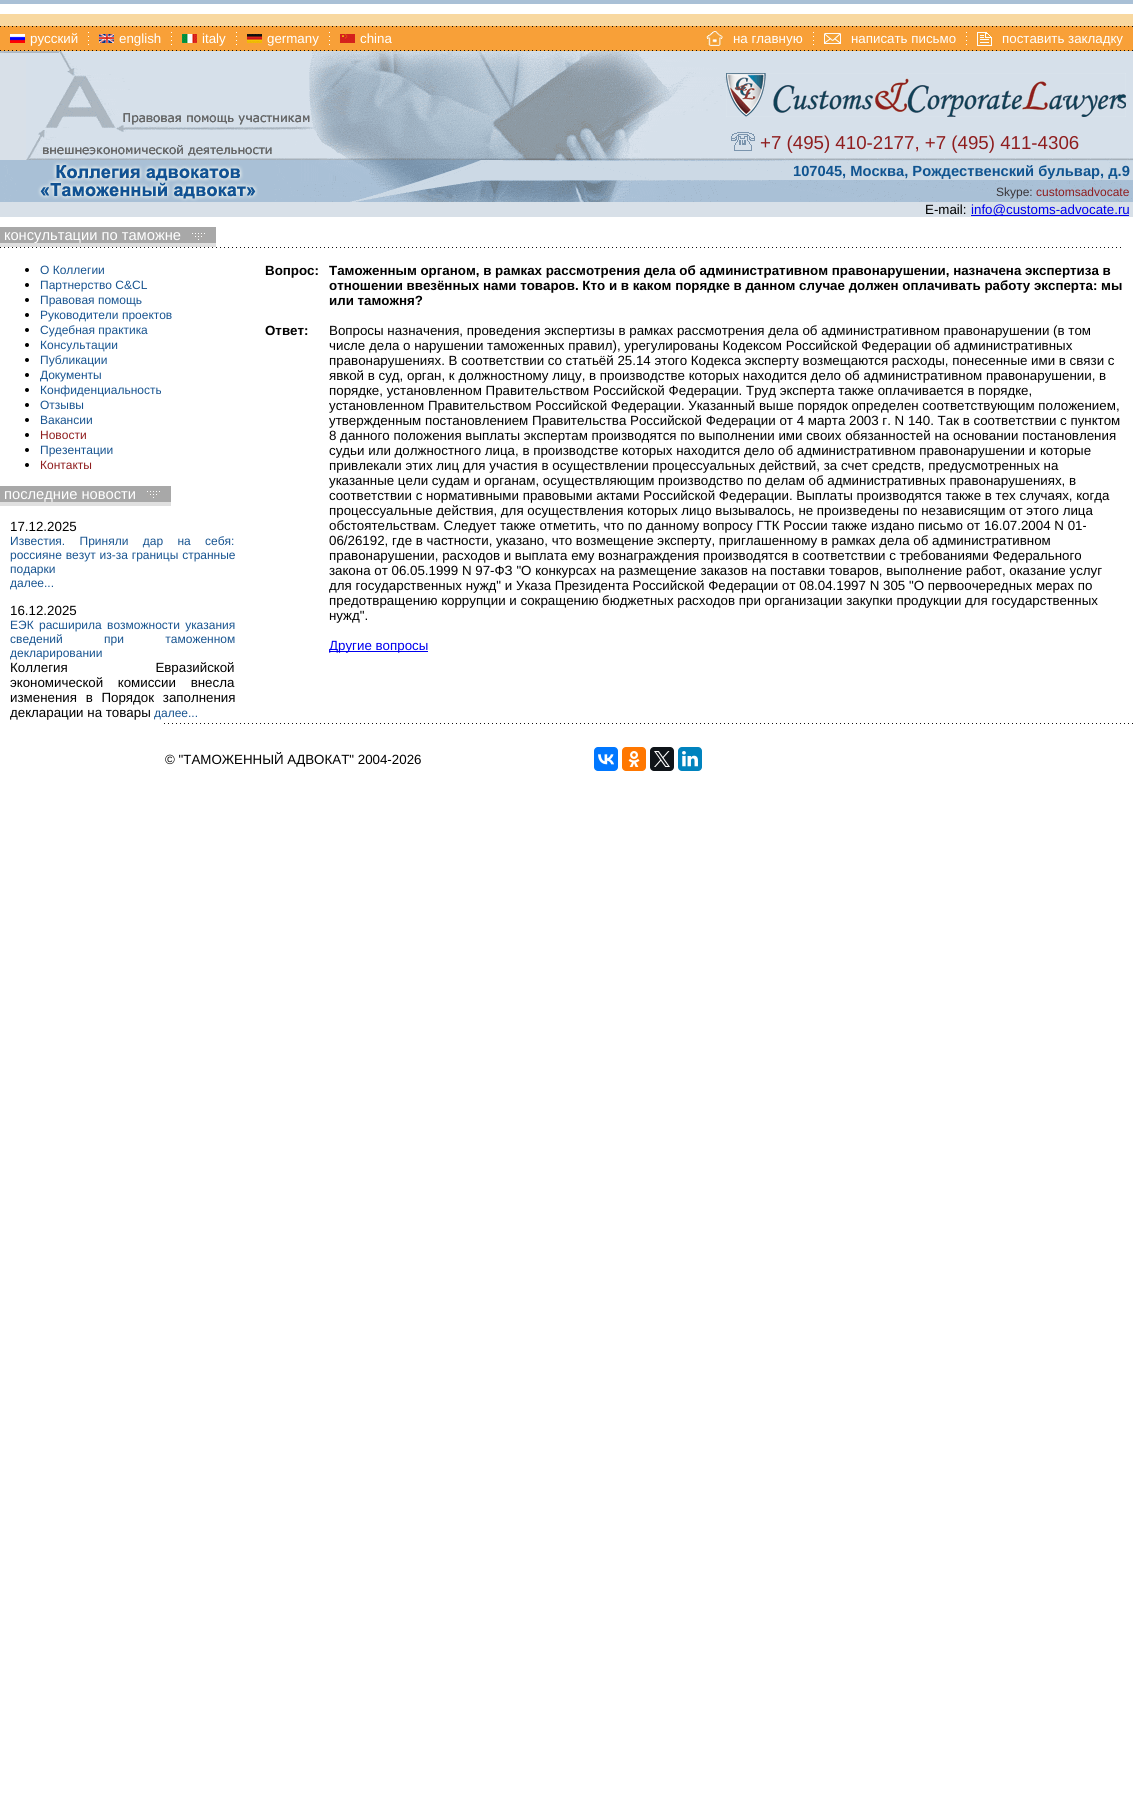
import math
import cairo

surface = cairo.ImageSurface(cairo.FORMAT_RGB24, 1133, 1797)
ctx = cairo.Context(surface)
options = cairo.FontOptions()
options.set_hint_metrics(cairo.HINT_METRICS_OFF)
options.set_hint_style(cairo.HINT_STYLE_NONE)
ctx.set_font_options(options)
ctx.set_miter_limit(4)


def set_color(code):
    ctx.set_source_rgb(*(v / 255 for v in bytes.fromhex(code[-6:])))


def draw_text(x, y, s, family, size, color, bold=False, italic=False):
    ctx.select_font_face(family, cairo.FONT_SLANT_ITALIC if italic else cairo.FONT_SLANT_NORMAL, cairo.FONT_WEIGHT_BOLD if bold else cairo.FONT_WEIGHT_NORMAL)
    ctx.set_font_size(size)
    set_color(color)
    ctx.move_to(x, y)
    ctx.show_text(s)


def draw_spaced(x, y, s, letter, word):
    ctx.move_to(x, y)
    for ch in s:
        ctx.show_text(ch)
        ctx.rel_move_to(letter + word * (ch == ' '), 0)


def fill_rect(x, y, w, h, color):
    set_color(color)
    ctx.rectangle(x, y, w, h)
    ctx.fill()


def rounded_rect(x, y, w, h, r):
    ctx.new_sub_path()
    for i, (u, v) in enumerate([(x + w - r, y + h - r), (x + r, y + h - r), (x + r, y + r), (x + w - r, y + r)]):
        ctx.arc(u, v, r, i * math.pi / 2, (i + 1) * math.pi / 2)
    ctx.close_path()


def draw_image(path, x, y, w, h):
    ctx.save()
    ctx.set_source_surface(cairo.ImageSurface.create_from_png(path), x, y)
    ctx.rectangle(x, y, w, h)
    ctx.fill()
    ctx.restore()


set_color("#ffffff")
ctx.paint()
fill_rect(0, 0, 1133, 4, "#a9c0d6")
fill_rect(0, 14, 1133, 12, "#f8d8a0")
draw_image("assets/img1.png", 0, 26, 1133, 1)
fill_rect(0, 27, 1133, 23, "#f8a038")
draw_image("assets/img2.png", 10, 34, 15, 9)
draw_text(30, 43, "русский", "Liberation Sans", 13.33, "#ffffff")
draw_image("assets/img3.png", 88, 32, 1, 13)
draw_image("assets/img4.png", 99, 34, 15, 9)
draw_text(119, 43, "english", "Liberation Sans", 13.33, "#ffffff")
draw_image("assets/img3.png", 171, 32, 1, 13)
draw_image("assets/img5.png", 182, 34, 15, 9)
draw_text(202, 43, "italy", "Liberation Sans", 13.33, "#ffffff")
draw_image("assets/img3.png", 236, 32, 1, 13)
draw_image("assets/img6.png", 247, 34, 15, 9)
draw_text(267, 43, "germany", "Liberation Sans", 13.33, "#ffffff")
draw_image("assets/img3.png", 329, 32, 1, 13)
draw_image("assets/img7.png", 340, 34, 15, 9)
draw_text(360, 43, "china", "Liberation Sans", 13.33, "#ffffff")
draw_image("assets/img8.png", 706, 31, 17, 15)
draw_text(733, 43, "на главную", "Liberation Sans", 13.33, "#ffffff")
draw_image("assets/img3.png", 813, 32, 1, 13)
draw_image("assets/img9.png", 824, 33, 17, 11)
draw_text(851, 43, "написать письмо", "Liberation Sans", 13.33, "#ffffff")
draw_image("assets/img3.png", 966, 32, 1, 13)
draw_image("assets/img10.png", 977, 32, 15, 14)
draw_text(1002, 43, "поставить закладку", "Liberation Sans", 13.33, "#ffffff")
draw_image("assets/img1.png", 0, 50, 1133, 1)
fill_rect(0, 53, 26, 107, "#d8e0e8")
draw_image("assets/img11.png", 0, 51, 26, 2)
draw_image("assets/img12.png", 26, 51, 1107, 109)
draw_image("assets/img13.png", 726, 73, 400, 44)
draw_image("assets/img14.png", 731, 132, 24, 19)
draw_text(760, 149, "+7 (495) 410-2177, +7 (495) 411-4306", "Liberation Sans", 18.7, "#8f1d1e")
draw_image("assets/img15.png", 0, 160, 295, 42)
draw_image("assets/img16.png", 295, 160, 838, 42)
draw_text(793, 176, "107045, Москва, Рождественский бульвар, д.9", "Liberation Sans", 14.7, "#105490", bold=True)
draw_text(996, 196, "Skype:", "Liberation Sans", 12, "#383438")
draw_text(1036, 196, "customsadvocate", "Liberation Sans", 12, "#8f1d1e")
fill_rect(0, 202, 1133, 15, "#d8e0e8")
draw_text(925, 214, "E-mail:", "Liberation Sans", 13.33, "#000000")
fill_rect(971, 215, 158, 1, "#0000ee")
draw_text(971, 214, "info@customs-advocate.ru", "Liberation Sans", 13.33, "#0000ee")
fill_rect(0, 227, 216, 16, "#a8a8a8")
fill_rect(0, 243, 216, 4, "#e0e0e0")
draw_text(4, 240, "консультации по таможне", "Liberation Sans", 14.7, "#ffffff")
draw_image("assets/img17.png", 192, 233, 13, 7)
draw_image("assets/img18.png", 0, 247, 1121, 1)
set_color("#000000")
ctx.arc(27, 270, 2, 0, 2 * math.pi)
ctx.fill()
draw_text(40, 274, "О Коллегии", "Liberation Sans", 12, "#185490")
set_color("#000000")
ctx.new_path()
ctx.arc(27, 285, 2, 0, 2 * math.pi)
ctx.fill()
draw_text(40, 289, "Партнерство C&CL", "Liberation Sans", 12, "#185490")
set_color("#000000")
ctx.new_path()
ctx.arc(27, 300, 2, 0, 2 * math.pi)
ctx.fill()
draw_text(40, 304, "Правовая помощь", "Liberation Sans", 12, "#185490")
set_color("#000000")
ctx.new_path()
ctx.arc(27, 315, 2, 0, 2 * math.pi)
ctx.fill()
draw_text(40, 319, "Руководители проектов", "Liberation Sans", 12, "#185490")
set_color("#000000")
ctx.new_path()
ctx.arc(27, 330, 2, 0, 2 * math.pi)
ctx.fill()
draw_text(40, 334, "Судебная практика", "Liberation Sans", 12, "#185490")
set_color("#000000")
ctx.new_path()
ctx.arc(27, 345, 2, 0, 2 * math.pi)
ctx.fill()
draw_text(40, 349, "Консультации", "Liberation Sans", 12, "#185490")
set_color("#000000")
ctx.new_path()
ctx.arc(27, 360, 2, 0, 2 * math.pi)
ctx.fill()
draw_text(40, 364, "Публикации", "Liberation Sans", 12, "#185490")
set_color("#000000")
ctx.new_path()
ctx.arc(27, 375, 2, 0, 2 * math.pi)
ctx.fill()
draw_text(40, 379, "Документы", "Liberation Sans", 12, "#185490")
set_color("#000000")
ctx.new_path()
ctx.arc(27, 390, 2, 0, 2 * math.pi)
ctx.fill()
draw_text(40, 394, "Конфиденциальность", "Liberation Sans", 12, "#185490")
set_color("#000000")
ctx.new_path()
ctx.arc(27, 405, 2, 0, 2 * math.pi)
ctx.fill()
draw_text(40, 409, "Отзывы", "Liberation Sans", 12, "#185490")
set_color("#000000")
ctx.new_path()
ctx.arc(27, 420, 2, 0, 2 * math.pi)
ctx.fill()
draw_text(40, 424, "Вакансии", "Liberation Sans", 12, "#185490")
set_color("#000000")
ctx.new_path()
ctx.arc(27, 435, 2, 0, 2 * math.pi)
ctx.fill()
draw_text(40, 439, "Новости", "Liberation Sans", 12, "#8f1d1e")
set_color("#000000")
ctx.new_path()
ctx.arc(27, 450, 2, 0, 2 * math.pi)
ctx.fill()
draw_text(40, 454, "Презентации", "Liberation Sans", 12, "#185490")
set_color("#000000")
ctx.new_path()
ctx.arc(27, 465, 2, 0, 2 * math.pi)
ctx.fill()
draw_text(40, 469, "Контакты", "Liberation Sans", 12, "#8f1d1e")
fill_rect(0, 486, 171, 16, "#a8a8a8")
draw_text(4, 499, "последние новости", "Liberation Sans", 14.7, "#ffffff")
draw_image("assets/img17.png", 147, 491, 13, 7)
fill_rect(0, 502, 171, 4, "#e0e0e0")
draw_text(10, 531, "17.12.2025", "Liberation Sans", 13.33, "#000000")
ctx.set_font_size(12)
set_color("#185490")
draw_spaced(10, 545, "Известия. Приняли дар на себя:", 0, 11)
draw_spaced(10, 559, "россияне везут из-за границы странные", 0, 0.5)
draw_text(10, 573, "подарки", "Liberation Sans", 12, "#185490")
draw_text(10, 587, "далее...", "Liberation Sans", 12, "#185490")
draw_text(10, 615, "16.12.2025", "Liberation Sans", 13.33, "#000000")
ctx.set_font_size(12)
set_color("#185490")
draw_spaced(10, 629, "ЕЭК расширила возможности указания", 0, 2)
draw_spaced(10, 643, "сведений при таможенном", 0, 38)
draw_text(10, 657, "декларировании", "Liberation Sans", 12, "#185490")
ctx.set_font_size(13.33)
set_color("#000000")
draw_spaced(10, 672, "Коллегия Евразийской", 0, 84)
draw_spaced(10, 687, "экономической комиссии внесла", 0, 11)
draw_spaced(10, 702, "изменения в Порядок заполнения", 0, 5)
draw_text(10, 717, "декларации на товары", "Liberation Sans", 13.33, "#000000")
draw_text(154, 717, "далее...", "Liberation Sans", 12, "#185490")
draw_text(265, 275, "Вопрос:", "Liberation Sans", 13.33, "#000000", bold=True)
draw_text(329, 275, "Таможенным органом, в рамках рассмотрения дела об административном правонарушении, назначена экспертиза в", "Liberation Sans", 13.33, "#000000", bold=True)
draw_text(329, 290, "отношении ввезённых нами товаров. Кто и в каком порядке в данном случае должен оплачивать работу эксперта: мы", "Liberation Sans", 13.33, "#000000", bold=True)
draw_text(329, 305, "или таможня?", "Liberation Sans", 13.33, "#000000", bold=True)
draw_text(265, 335, "Ответ:", "Liberation Sans", 13.33, "#000000", bold=True)
draw_text(329, 335, "Вопросы назначения, проведения экспертизы в рамках рассмотрения дела об административном правонарушении (в том", "Liberation Sans", 13.33, "#000000")
draw_text(329, 350, "числе дела о нарушении таможенных правил), урегулированы Кодексом Российской Федерации об административных", "Liberation Sans", 13.33, "#000000")
draw_text(329, 365, "правонарушениях. В соответствии со статьёй 25.14 этого Кодекса эксперту возмещаются расходы, понесенные ими в связи с", "Liberation Sans", 13.33, "#000000")
draw_text(329, 380, "явкой в суд, орган, к должностному лицу, в производстве которых находится дело об административном правонарушении, в", "Liberation Sans", 13.33, "#000000")
draw_text(329, 395, "порядке, установленном Правительством Российской Федерации. Труд эксперта также оплачивается в порядке,", "Liberation Sans", 13.33, "#000000")
draw_text(329, 410, "установленном Правительством Российской Федерации. Указанный выше порядок определен соответствующим положением,", "Liberation Sans", 13.33, "#000000")
draw_text(329, 425, "утвержденным постановлением Правительства Российской Федерации от 4 марта 2003 г. N 140. Так в соответствии с пунктом", "Liberation Sans", 13.33, "#000000")
draw_text(329, 440, "8 данного положения выплаты экспертам производятся по выполнении ими своих обязанностей на основании постановления", "Liberation Sans", 13.33, "#000000")
draw_text(329, 455, "судьи или должностного лица, в производстве которых находится дело об административном правонарушении и которые", "Liberation Sans", 13.33, "#000000")
draw_text(329, 470, "привлекали этих лиц для участия в осуществлении процессуальных действий, за счет средств, предусмотренных на", "Liberation Sans", 13.33, "#000000")
draw_text(329, 485, "указанные цели судам и органам, осуществляющим производство по делам об административных правонарушениях, в", "Liberation Sans", 13.33, "#000000")
draw_text(329, 500, "соответствии с нормативными правовыми актами Российской Федерации. Выплаты производятся также в тех случаях, когда", "Liberation Sans", 13.33, "#000000")
draw_text(329, 515, "процессуальные действия, для осуществления которых лицо вызывалось, не произведены по независящим от этого лица", "Liberation Sans", 13.33, "#000000")
draw_text(329, 530, "обстоятельствам. Следует также отметить, что по данному вопросу ГТК России также издано письмо от 16.07.2004 N 01-", "Liberation Sans", 13.33, "#000000")
draw_text(329, 545, "06/26192, где в частности, указано, что возмещение эксперту, приглашенному в рамках дела об административном", "Liberation Sans", 13.33, "#000000")
draw_text(329, 560, "правонарушении, расходов и выплата ему вознаграждения производятся в соответствии с требованиями Федерального", "Liberation Sans", 13.33, "#000000")
draw_text(329, 575, "закона от 06.05.1999 N 97-ФЗ \"О конкурсах на размещение заказов на поставки товаров, выполнение работ, оказание услуг", "Liberation Sans", 13.33, "#000000")
draw_text(329, 590, "для государственных нужд\" и Указа Президента Российской Федерации от 08.04.1997 N 305 \"О первоочередных мерах по", "Liberation Sans", 13.33, "#000000")
draw_text(329, 605, "предотвращению коррупции и сокращению бюджетных расходов при организации закупки продукции для государственных", "Liberation Sans", 13.33, "#000000")
draw_text(329, 620, "нужд\".", "Liberation Sans", 13.33, "#000000")
fill_rect(329, 651, 99, 1, "#0000ee")
draw_text(329, 650, "Другие вопросы", "Liberation Sans", 13.33, "#0000ee")
draw_image("assets/img19.png", 164, 723, 969, 1)
draw_text(165, 764, "© \"ТАМОЖЕННЫЙ АДВОКАТ\" 2004-2026", "Liberation Sans", 13.33, "#000000")
set_color("#0077ff")
rounded_rect(594, 747, 24, 24, 4)
ctx.fill()
draw_image("assets/img20.png", 598, 754, 16, 11)
set_color("#ff7700")
rounded_rect(622, 747, 24, 24, 4)
ctx.fill()
draw_image("assets/img21.png", 628, 751, 12, 16)
set_color("#0f1419")
rounded_rect(650, 747, 24, 24, 4)
ctx.fill()
draw_image("assets/img22.png", 654, 751, 16, 16)
set_color("#0083be")
rounded_rect(678, 747, 24, 24, 4)
ctx.fill()
draw_image("assets/img23.png", 682, 751, 16, 16)
surface.write_to_png("output.png")
